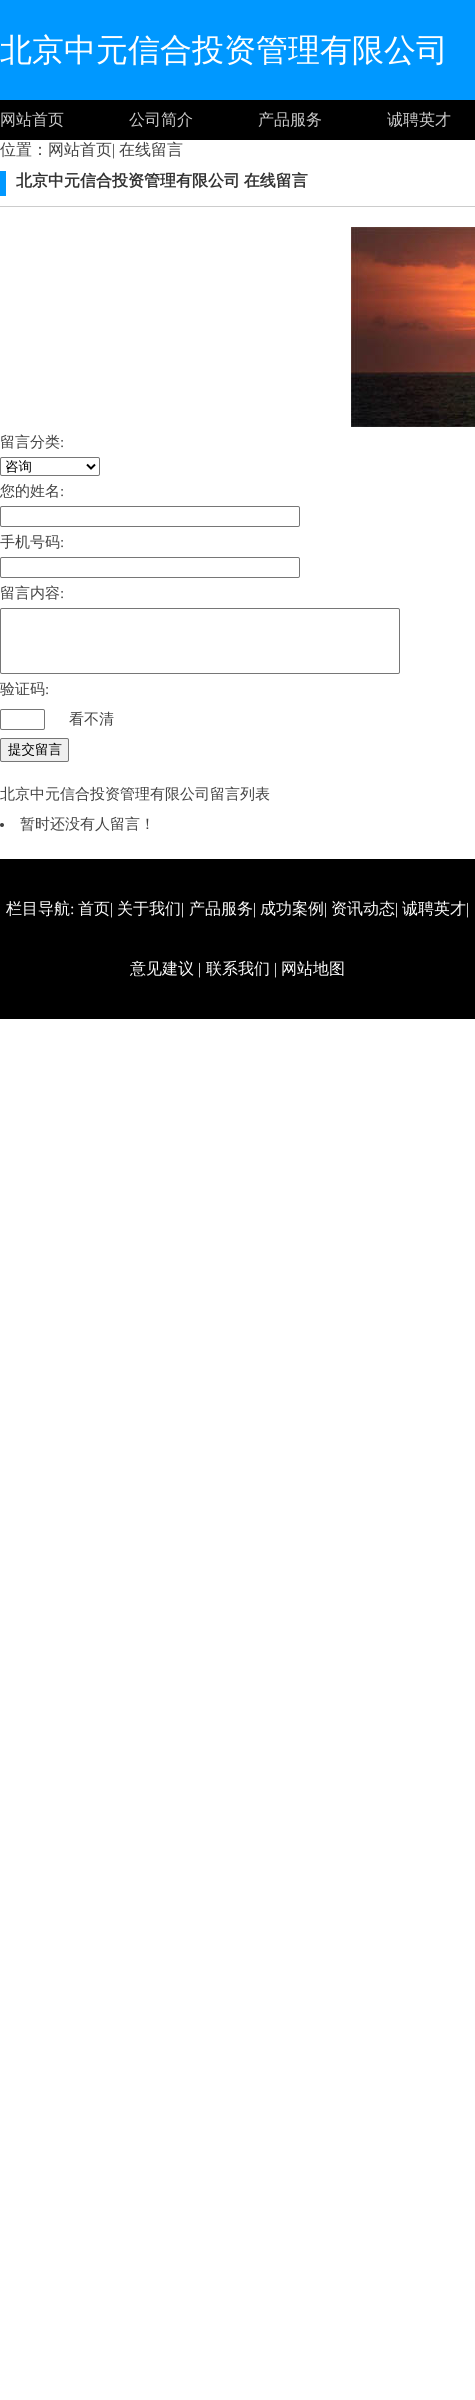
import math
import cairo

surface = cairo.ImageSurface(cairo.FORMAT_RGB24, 475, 2400)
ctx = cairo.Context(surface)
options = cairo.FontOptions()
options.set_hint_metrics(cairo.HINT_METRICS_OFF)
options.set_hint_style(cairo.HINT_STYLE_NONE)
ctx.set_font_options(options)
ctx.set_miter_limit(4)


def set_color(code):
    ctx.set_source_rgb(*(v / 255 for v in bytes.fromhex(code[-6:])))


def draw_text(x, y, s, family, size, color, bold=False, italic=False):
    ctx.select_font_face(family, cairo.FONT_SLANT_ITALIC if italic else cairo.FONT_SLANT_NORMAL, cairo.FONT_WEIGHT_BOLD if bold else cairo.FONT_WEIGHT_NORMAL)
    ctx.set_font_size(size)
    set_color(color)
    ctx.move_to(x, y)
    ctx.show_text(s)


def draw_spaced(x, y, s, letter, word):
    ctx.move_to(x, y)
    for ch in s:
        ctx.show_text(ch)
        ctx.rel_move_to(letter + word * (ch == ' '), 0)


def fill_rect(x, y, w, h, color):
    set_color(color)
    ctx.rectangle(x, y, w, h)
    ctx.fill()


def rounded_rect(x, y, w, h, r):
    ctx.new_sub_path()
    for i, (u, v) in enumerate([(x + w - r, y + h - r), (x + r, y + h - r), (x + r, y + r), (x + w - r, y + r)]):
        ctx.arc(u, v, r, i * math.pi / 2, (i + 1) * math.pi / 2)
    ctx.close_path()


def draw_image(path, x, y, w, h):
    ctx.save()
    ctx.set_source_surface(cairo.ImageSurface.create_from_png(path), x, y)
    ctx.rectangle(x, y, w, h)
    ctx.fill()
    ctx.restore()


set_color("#ffffff")
ctx.paint()
fill_rect(0, 0, 475, 100, "#0098ff")
draw_text(0, 61, "北京中元信合投资管理有限公司", "WenQuanYi Zen Hei Medium", 32, "#ffffff")
fill_rect(0, 100, 475, 40, "#000000")
draw_text(0, 125, "网站首页", "WenQuanYi Zen Hei Medium", 16, "#cccccc")
draw_text(129, 125, "公司简介", "WenQuanYi Zen Hei Medium", 16, "#cccccc")
draw_text(258, 125, "产品服务", "WenQuanYi Zen Hei Medium", 16, "#cccccc")
draw_text(387, 125, "诚聘英才", "WenQuanYi Zen Hei Medium", 16, "#cccccc")
draw_text(0, 155, "位置：网站首页", "WenQuanYi Zen Hei Medium", 16, "#414141")
draw_text(112, 155, "|", "Liberation Serif", 16, "#414141")
draw_text(119, 155, "在线留言", "WenQuanYi Zen Hei Medium", 16, "#414141")
fill_rect(0, 206, 475, 1, "#cccccc")
fill_rect(0, 171, 6, 25, "#0098ff")
ctx.select_font_face("WenQuanYi Zen Hei", cairo.FONT_SLANT_NORMAL, cairo.FONT_WEIGHT_BOLD)
set_color("#333333")
draw_spaced(16, 186, "北京中元信合投资管理有限公司 在线留言", 0, -1)
draw_image("assets/img1.png", 351, 227, 124, 200)
draw_text(0, 447, "留言分类", "WenQuanYi Zen Hei Medium", 15, "#414141")
draw_text(60, 447, ":", "Liberation Serif", 15, "#414141")
rounded_rect(0.5, 457.5, 99, 18, 1.5)
set_color("#767676")
ctx.set_line_width(1)
ctx.stroke()
ctx.new_path()
ctx.move_to(87, 464.5)
ctx.line_to(91, 468.5)
ctx.line_to(95, 464.5)
set_color("#000000")
ctx.set_line_width(2)
ctx.stroke()
draw_text(5, 471, "咨询", "WenQuanYi Zen Hei Medium", 13.5, "#000000")
draw_text(0, 496, "您的姓名", "WenQuanYi Zen Hei Medium", 15, "#414141")
draw_text(60, 496, ":", "Liberation Serif", 15, "#414141")
rounded_rect(0.5, 506.5, 299, 20, 1.5)
set_color("#767676")
ctx.set_line_width(1)
ctx.stroke()
draw_text(0, 547, "手机号码", "WenQuanYi Zen Hei Medium", 15, "#414141")
draw_text(60, 547, ":", "Liberation Serif", 15, "#414141")
rounded_rect(0.5, 557.5, 299, 20, 1.5)
set_color("#767676")
ctx.stroke()
draw_text(0, 598, "留言内容", "WenQuanYi Zen Hei Medium", 15, "#414141")
draw_text(60, 598, ":", "Liberation Serif", 15, "#414141")
rounded_rect(0.5, 608.5, 399, 65, 1.5)
set_color("#767676")
ctx.stroke()
draw_text(0, 694, "验证码", "WenQuanYi Zen Hei Medium", 15, "#414141")
draw_text(45, 694, ":", "Liberation Serif", 15, "#414141")
rounded_rect(0.5, 709.5, 44, 20, 1.5)
set_color("#767676")
ctx.stroke()
draw_text(69, 724, "看不清", "WenQuanYi Zen Hei Medium", 15, "#414141")
set_color("#efefef")
rounded_rect(0.5, 738.5, 68, 23, 1.5)
ctx.fill_preserve()
set_color("#767676")
ctx.stroke()
draw_text(8, 754, "提交留言", "WenQuanYi Zen Hei Medium", 13.5, "#000000")
draw_text(0, 799, "北京中元信合投资管理有限公司留言列表", "WenQuanYi Zen Hei Medium", 15, "#414141")
ctx.new_path()
ctx.arc(2, 825, 2, 0, 2 * math.pi)
ctx.fill()
draw_text(20, 829, "暂时还没有人留言！", "WenQuanYi Zen Hei Medium", 15, "#414141")
fill_rect(0, 859, 475, 160, "#000000")
draw_text(6, 914, "栏目导航", "WenQuanYi Zen Hei Medium", 16, "#ffffff")
draw_text(70, 914, ":", "Liberation Serif", 16, "#ffffff")
draw_text(78, 914, "首页", "WenQuanYi Zen Hei Medium", 16, "#ffffff")
draw_text(110, 914, "|", "Liberation Serif", 16, "#ffffff")
draw_text(117, 914, "关于我们", "WenQuanYi Zen Hei Medium", 16, "#ffffff")
draw_text(181, 914, "|", "Liberation Serif", 16, "#ffffff")
draw_text(189, 914, "产品服务", "WenQuanYi Zen Hei Medium", 16, "#ffffff")
draw_text(253, 914, "|", "Liberation Serif", 16, "#ffffff")
draw_text(260, 914, "成功案例", "WenQuanYi Zen Hei Medium", 16, "#ffffff")
draw_text(324, 914, "|", "Liberation Serif", 16, "#ffffff")
draw_text(331, 914, "资讯动态", "WenQuanYi Zen Hei Medium", 16, "#ffffff")
draw_text(395, 914, "|", "Liberation Serif", 16, "#ffffff")
draw_text(402, 914, "诚聘英才", "WenQuanYi Zen Hei Medium", 16, "#ffffff")
draw_text(466, 914, "|", "Liberation Serif", 16, "#ffffff")
draw_text(130, 974, "意见建议", "WenQuanYi Zen Hei Medium", 16, "#ffffff")
draw_text(198, 974, "|", "Liberation Serif", 16, "#ffffff")
draw_text(206, 974, "联系我们", "WenQuanYi Zen Hei Medium", 16, "#ffffff")
draw_text(274, 974, "|", "Liberation Serif", 16, "#ffffff")
draw_text(281, 974, "网站地图", "WenQuanYi Zen Hei Medium", 16, "#ffffff")
surface.write_to_png("output.png")
